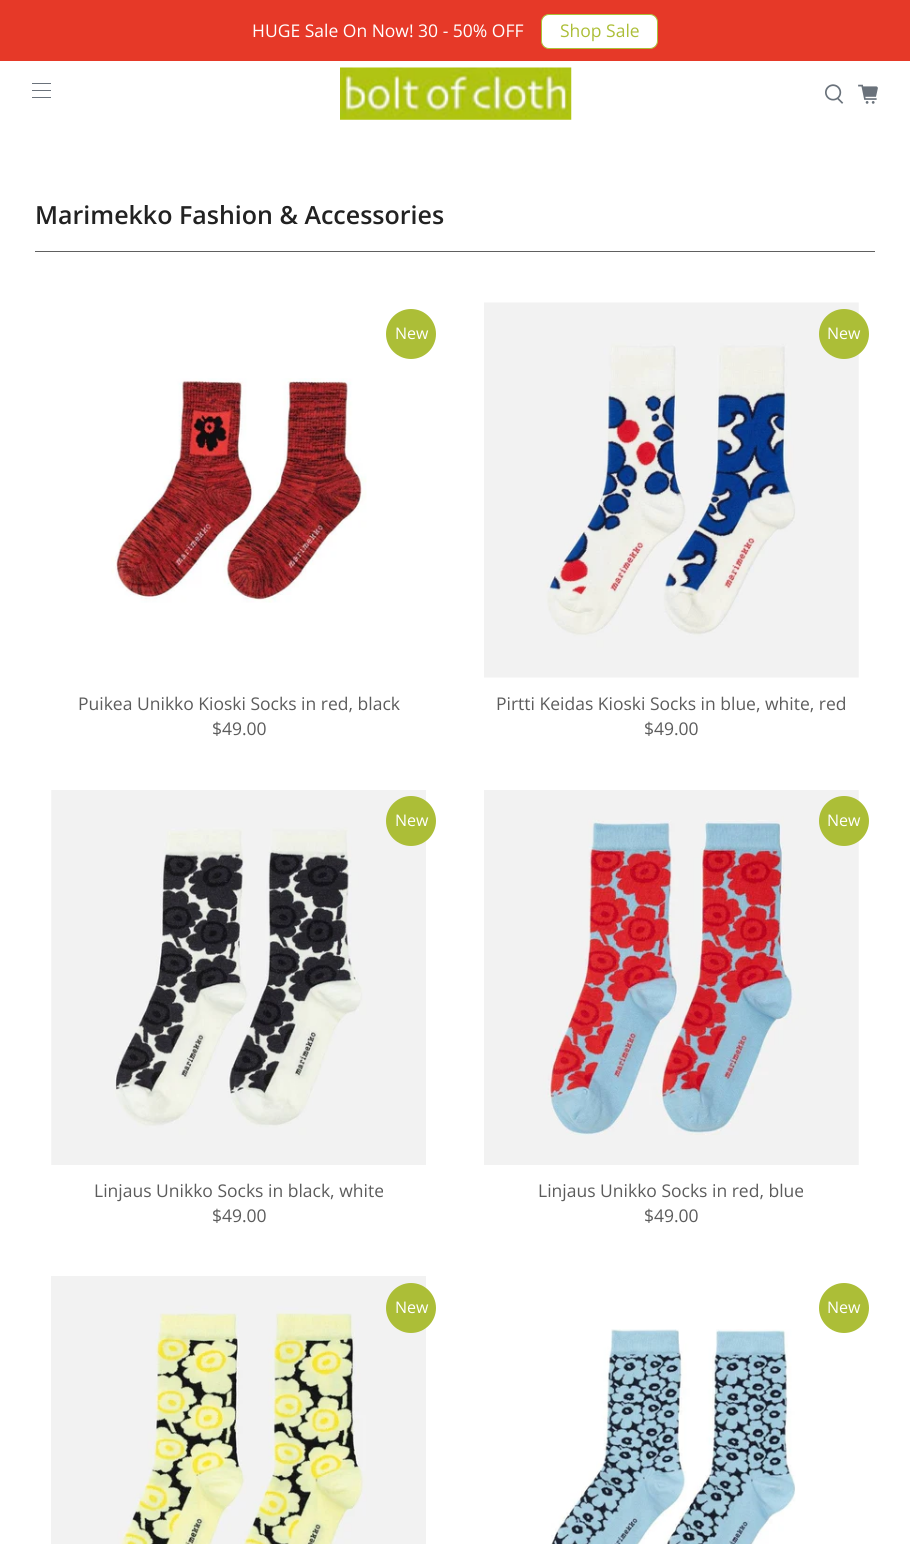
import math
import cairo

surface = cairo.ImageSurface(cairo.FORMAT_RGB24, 910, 1544)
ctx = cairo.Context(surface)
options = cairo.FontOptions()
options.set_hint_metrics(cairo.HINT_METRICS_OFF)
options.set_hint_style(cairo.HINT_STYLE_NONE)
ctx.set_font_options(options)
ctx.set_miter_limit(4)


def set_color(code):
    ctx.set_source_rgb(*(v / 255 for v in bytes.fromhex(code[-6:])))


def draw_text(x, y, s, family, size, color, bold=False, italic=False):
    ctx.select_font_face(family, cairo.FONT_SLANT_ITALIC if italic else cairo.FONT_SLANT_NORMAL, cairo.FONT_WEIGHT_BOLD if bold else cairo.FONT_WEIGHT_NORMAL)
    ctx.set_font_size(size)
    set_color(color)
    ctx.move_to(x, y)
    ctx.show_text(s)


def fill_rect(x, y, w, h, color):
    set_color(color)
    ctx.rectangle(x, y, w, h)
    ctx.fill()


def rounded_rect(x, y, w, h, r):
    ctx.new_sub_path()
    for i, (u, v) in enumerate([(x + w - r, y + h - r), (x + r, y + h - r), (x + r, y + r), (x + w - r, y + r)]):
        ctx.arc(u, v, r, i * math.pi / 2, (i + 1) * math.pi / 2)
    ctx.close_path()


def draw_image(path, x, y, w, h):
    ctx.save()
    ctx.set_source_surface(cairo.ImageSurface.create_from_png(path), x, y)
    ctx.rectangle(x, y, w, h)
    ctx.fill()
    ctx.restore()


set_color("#ffffff")
ctx.paint()
fill_rect(0, 0, 910, 61, "#e63928")
draw_text(252, 37, "HUGE Sale On Now! 30 - 50% OFF", "Open Sans", 17.5, "#ffffff")
rounded_rect(541.5, 14.5, 116, 34, 7.5)
ctx.fill_preserve()
set_color("#acbe37")
ctx.set_line_width(1)
ctx.stroke()
draw_text(560, 37, "Shop Sale", "Open Sans", 17.5, "#acbe37")
fill_rect(32, 83, 19, 1, "#6a727b")
fill_rect(32, 90, 19, 1, "#6a727b")
fill_rect(32, 97, 19, 1, "#6a727b")
draw_image("assets/img1.png", 340, 67, 232, 53)
draw_image("assets/img2.png", 825, 84, 19, 20)
draw_image("assets/img3.png", 858, 84, 20, 20)
draw_text(35, 224, "Marimekko Fashion & Accessories", "Open Sans SemiBold", 25, "#222222")
fill_rect(35, 251, 840, 1, "#606060")
set_color("#acbe37")
ctx.new_path()
ctx.arc(411, 334, 25, 0, 2 * math.pi)
ctx.fill()
draw_text(395, 339, "New", "Open Sans", 16, "#ffffff")
draw_image("assets/img4.png", 111, 378, 256, 225)
draw_text(78, 710, "Puikea Unikko Kioski Socks in red, black", "Open Sans", 17.5, "#5c5c5c")
draw_text(212, 735, "$49.00", "Open Sans", 17.5, "#5c5c5c")
draw_image("assets/img5.png", 484, 302, 375, 376)
set_color("#acbe37")
ctx.arc(844, 334, 25, 0, 2 * math.pi)
ctx.fill()
draw_text(827, 339, "New", "Open Sans", 16, "#ffffff")
draw_text(496, 710, "Pirtti Keidas Kioski Socks in blue, white, red", "Open Sans", 17.5, "#5c5c5c")
draw_text(644, 735, "$49.00", "Open Sans", 17.5, "#5c5c5c")
draw_image("assets/img6.png", 51, 790, 375, 375)
set_color("#acbe37")
ctx.arc(411, 821, 25, 0, 2 * math.pi)
ctx.fill()
draw_text(395, 826, "New", "Open Sans", 16, "#ffffff")
draw_text(94, 1197, "Linjaus Unikko Socks in black, white", "Open Sans", 17.5, "#5c5c5c")
draw_text(212, 1222, "$49.00", "Open Sans", 17.5, "#5c5c5c")
draw_image("assets/img7.png", 484, 790, 375, 375)
set_color("#acbe37")
ctx.arc(844, 821, 25, 0, 2 * math.pi)
ctx.fill()
draw_text(827, 826, "New", "Open Sans", 16, "#ffffff")
draw_text(538, 1197, "Linjaus Unikko Socks in red, blue", "Open Sans", 17.5, "#5c5c5c")
draw_text(644, 1222, "$49.00", "Open Sans", 17.5, "#5c5c5c")
draw_image("assets/img8.png", 51, 1276, 375, 268)
set_color("#acbe37")
ctx.arc(411, 1308, 25, 0, 2 * math.pi)
ctx.fill()
draw_text(395, 1313, "New", "Open Sans", 16, "#ffffff")
set_color("#acbe37")
ctx.new_path()
ctx.arc(844, 1308, 25, 0, 2 * math.pi)
ctx.fill()
draw_text(827, 1313, "New", "Open Sans", 16, "#ffffff")
draw_image("assets/img9.png", 551, 1329, 245, 215)
surface.write_to_png("output.png")
